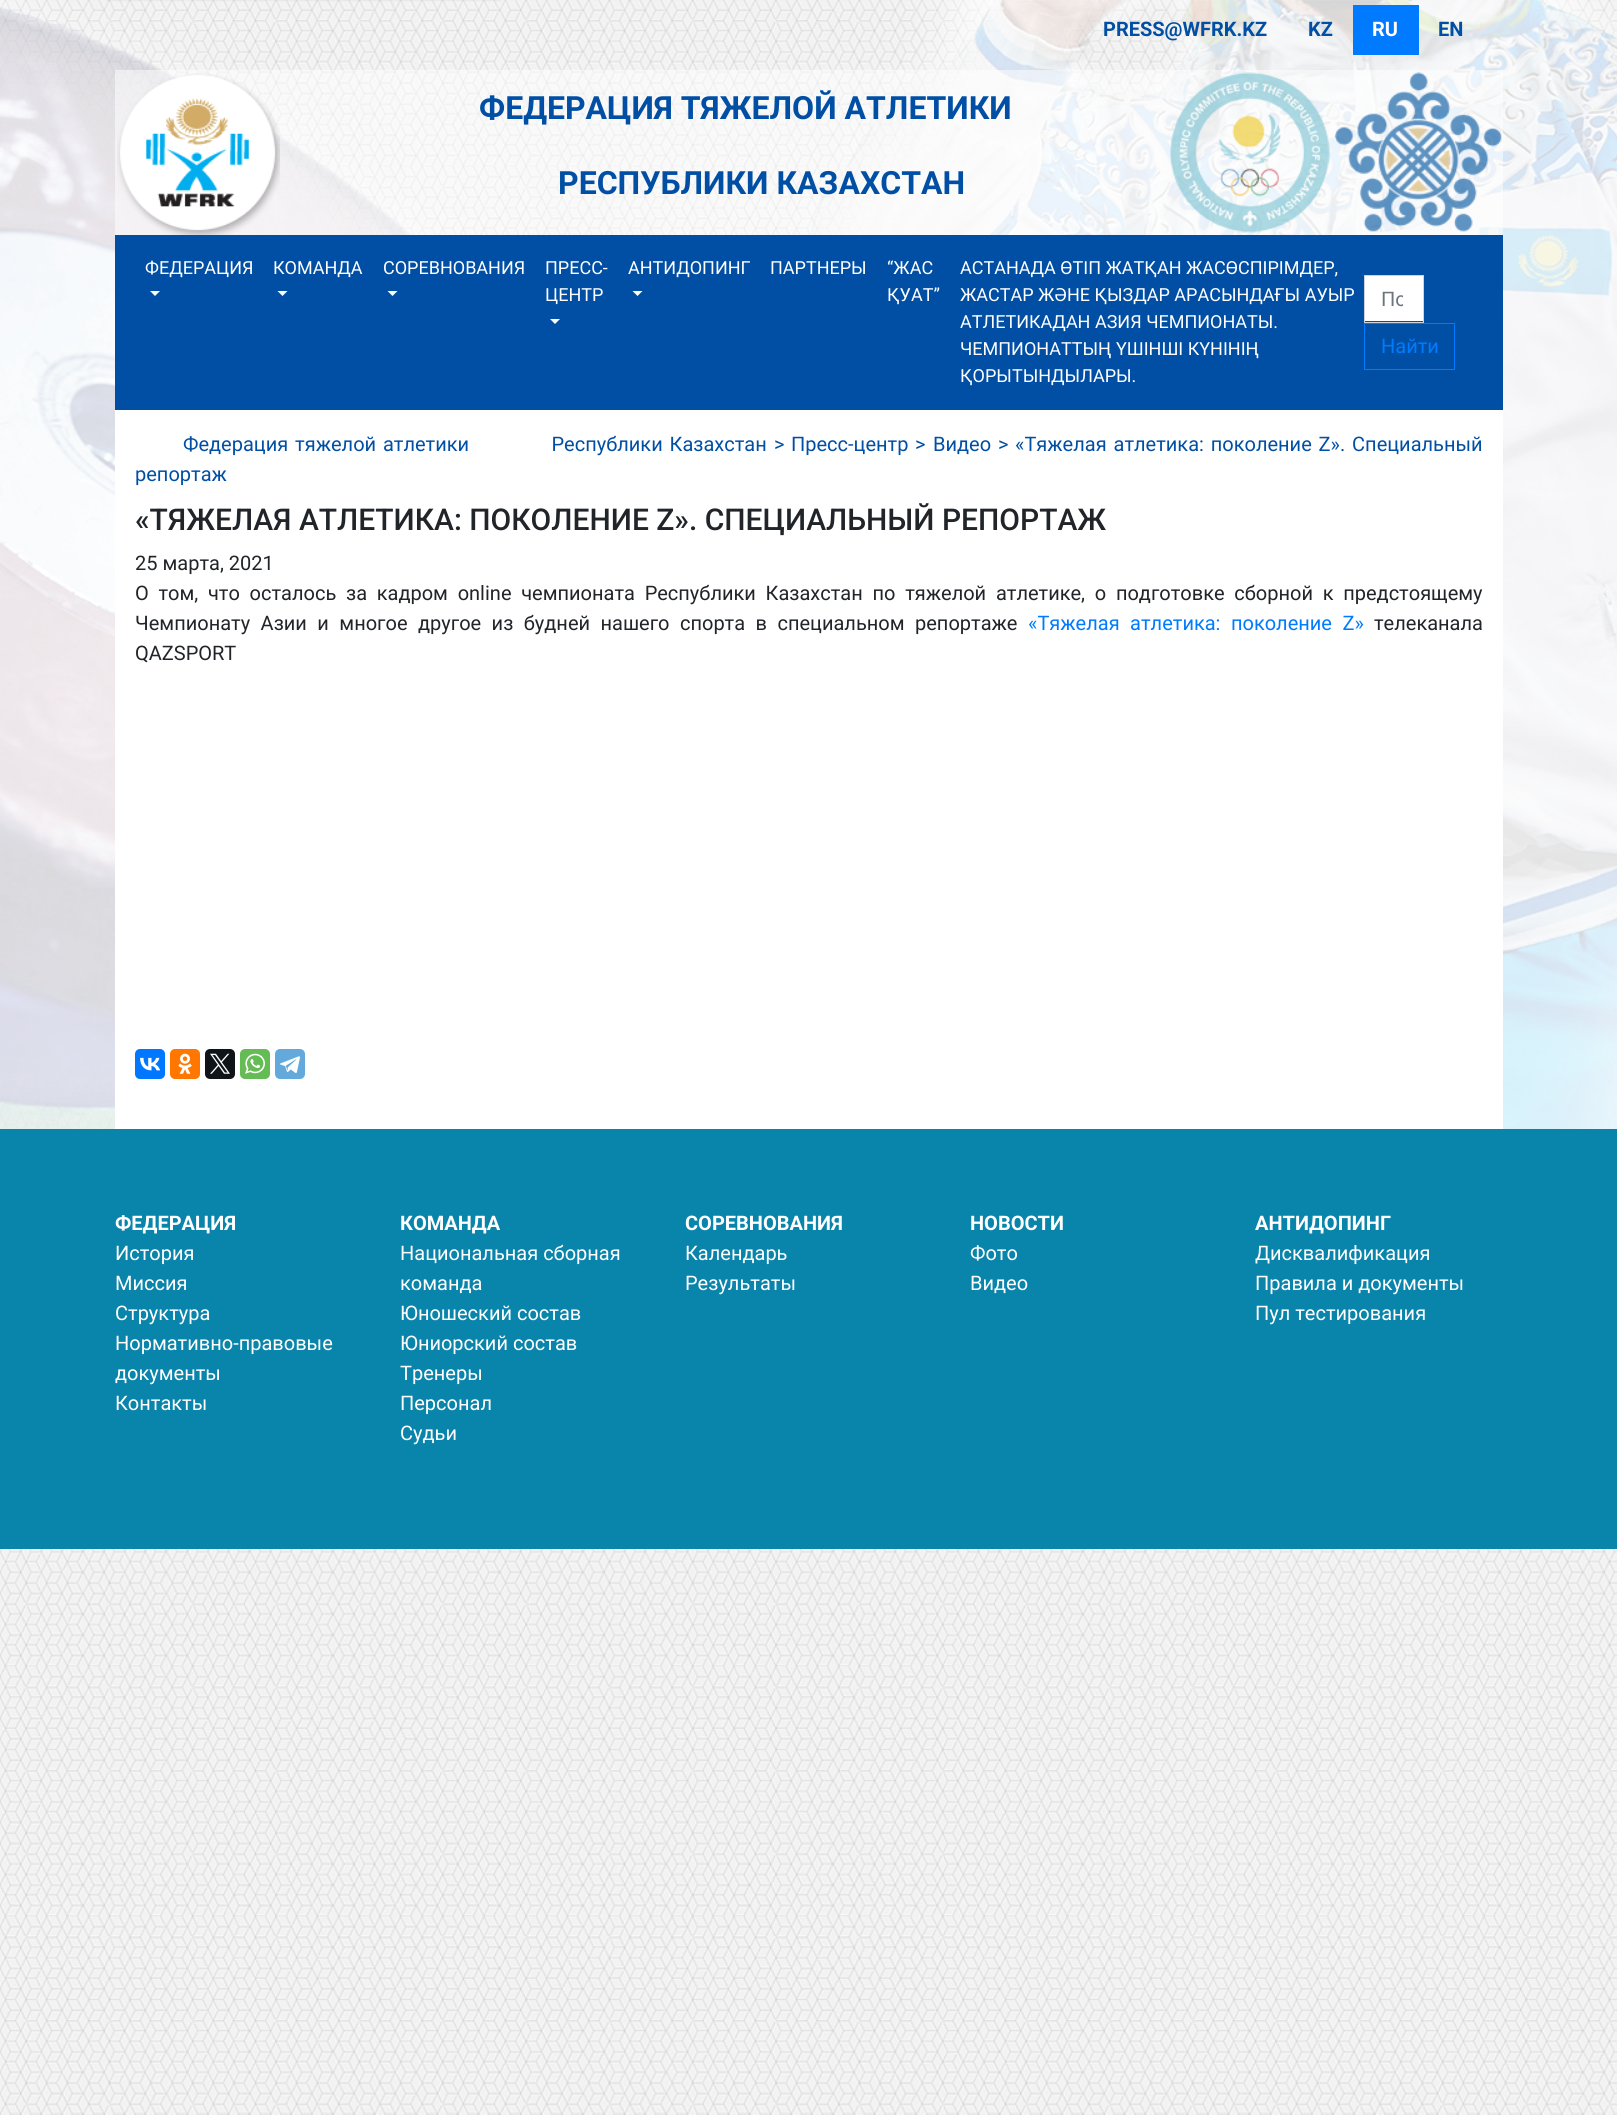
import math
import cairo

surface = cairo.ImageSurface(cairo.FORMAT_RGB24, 1617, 2115)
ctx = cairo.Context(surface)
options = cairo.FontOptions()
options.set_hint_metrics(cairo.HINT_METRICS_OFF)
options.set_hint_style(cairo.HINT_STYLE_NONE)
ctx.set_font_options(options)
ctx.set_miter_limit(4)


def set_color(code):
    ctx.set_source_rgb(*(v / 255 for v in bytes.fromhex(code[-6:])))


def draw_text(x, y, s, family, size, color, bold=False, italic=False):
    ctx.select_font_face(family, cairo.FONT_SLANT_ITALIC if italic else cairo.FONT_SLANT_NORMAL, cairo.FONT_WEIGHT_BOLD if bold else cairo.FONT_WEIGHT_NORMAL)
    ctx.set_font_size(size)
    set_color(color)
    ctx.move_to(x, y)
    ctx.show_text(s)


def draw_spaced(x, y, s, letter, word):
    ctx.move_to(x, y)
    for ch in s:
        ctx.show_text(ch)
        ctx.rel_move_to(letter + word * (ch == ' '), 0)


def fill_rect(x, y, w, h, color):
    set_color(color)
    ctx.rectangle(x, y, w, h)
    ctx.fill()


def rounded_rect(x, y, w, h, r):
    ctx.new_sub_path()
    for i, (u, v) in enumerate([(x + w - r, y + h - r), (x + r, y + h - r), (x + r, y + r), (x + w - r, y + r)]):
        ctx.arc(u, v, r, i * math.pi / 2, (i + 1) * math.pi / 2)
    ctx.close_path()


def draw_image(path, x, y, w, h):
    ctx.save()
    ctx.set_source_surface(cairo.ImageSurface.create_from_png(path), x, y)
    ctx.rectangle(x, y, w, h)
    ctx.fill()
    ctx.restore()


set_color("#ffffff")
ctx.paint()
draw_image("assets/img1.png", 0, 0, 1617, 2115)
draw_image("assets/img2.png", 0, 0, 1617, 1129)
draw_text(1103, 36, "PRESS@WFRK.KZ", "Roboto", 20, "#004fa5", bold=True)
draw_text(1308, 36, "KZ", "Roboto", 20, "#004fa5", bold=True)
fill_rect(1353, 5, 66, 50, "#007bff")
draw_text(1372, 36, "RU", "Roboto", 20, "#ffffff", bold=True)
draw_text(1438, 36, "EN", "Roboto", 20, "#004fa5", bold=True)
ctx.set_source_rgba(1, 1, 1, 0.5)
ctx.rectangle(115, 70, 1388, 165)
ctx.fill()
draw_image("assets/img3.png", 117, 73, 163, 162)
draw_text(479, 119, "ФЕДЕРАЦИЯ ТЯЖЕЛОЙ АТЛЕТИКИ", "Roboto", 32, "#004fa5", bold=True)
draw_text(558, 194, "РЕСПУБЛИКИ КАЗАХСТАН", "Roboto", 32, "#004fa5", bold=True)
draw_image("assets/img4.png", 1170, 72, 161, 161)
draw_image("assets/img5.png", 1334, 72, 168, 160)
fill_rect(115, 235, 1388, 175, "#004fa5")
draw_text(145, 274, "ФЕДЕРАЦИЯ", "Roboto", 18, "#ffffff")
ctx.new_path()
ctx.move_to(150, 291)
ctx.line_to(160, 291)
ctx.line_to(155, 296)
ctx.close_path()
ctx.fill()
draw_text(273, 274, "КОМАНДА", "Roboto", 18, "#ffffff")
ctx.new_path()
ctx.move_to(277.5, 291)
ctx.line_to(287.5, 291)
ctx.line_to(282.5, 296)
ctx.close_path()
ctx.fill()
draw_text(383, 274, "СОРЕВНОВАНИЯ", "Roboto", 18, "#ffffff")
ctx.new_path()
ctx.move_to(387.5, 291)
ctx.line_to(397.5, 291)
ctx.line_to(392.5, 296)
ctx.close_path()
ctx.fill()
draw_text(545, 274, "ПРЕСС-", "Roboto", 18, "#ffffff")
draw_text(545, 301, "ЦЕНТР", "Roboto", 18, "#ffffff")
ctx.new_path()
ctx.move_to(550, 319)
ctx.line_to(560, 319)
ctx.line_to(555, 324)
ctx.close_path()
ctx.fill()
draw_text(628, 274, "АНТИДОПИНГ", "Roboto", 18, "#ffffff")
ctx.new_path()
ctx.move_to(632.5, 291)
ctx.line_to(642.5, 291)
ctx.line_to(637.5, 296)
ctx.close_path()
ctx.fill()
draw_text(770, 274, "ПАРТНЕРЫ", "Roboto", 18, "#ffffff")
draw_text(887, 274, "“ЖАС", "Roboto", 18, "#ffffff")
draw_text(887, 301, "ҚУАТ”", "Roboto", 18, "#ffffff")
draw_text(960, 274, "АСТАНАДА ӨТІП ЖАТҚАН ЖАСӨСПІРІМДЕР,", "Roboto", 18, "#ffffff")
draw_text(960, 301, "ЖАСТАР ЖӘНЕ ҚЫЗДАР АРАСЫНДАҒЫ АУЫР", "Roboto", 18, "#ffffff")
draw_text(960, 328, "АТЛЕТИКАДАН АЗИЯ ЧЕМПИОНАТЫ.", "Roboto", 18, "#ffffff")
draw_text(960, 355, "ЧЕМПИОНАТТЫҢ ҮШІНШІ КҮНІНІҢ", "Roboto", 18, "#ffffff")
draw_text(960, 382, "ҚОРЫТЫНДЫЛАРЫ.", "Roboto", 18, "#ffffff")
fill_rect(1365, 276, 58, 45, "#ffffff")
ctx.rectangle(1364.5, 275.5, 59, 47)
set_color("#ced4da")
ctx.set_line_width(1)
ctx.stroke()
ctx.save()
ctx.rectangle(1380, 288, 23, 23)
ctx.clip()
draw_text(1381, 306, "По", "Roboto", 20, "#6c757d")
ctx.restore()
ctx.rectangle(1364.5, 323.5, 90, 46)
set_color("#007bff")
ctx.stroke()
draw_text(1381, 353, "Найти", "Roboto", 20, "#007bff")
fill_rect(115, 410, 1388, 719, "#ffffff")
set_color("#004fa5")
draw_spaced(183, 451, "Федерация тяжелой атлетики            Республики Казахстан", 0, 1.9)
draw_text(774, 451, ">", "Roboto", 20, "#004fa5")
draw_text(791, 451, "Пресс-центр", "Roboto", 20, "#004fa5")
draw_text(915, 451, ">", "Roboto", 20, "#004fa5")
draw_text(933, 451, "Видео", "Roboto", 20, "#004fa5")
draw_text(998, 451, ">", "Roboto", 20, "#004fa5")
draw_spaced(1015, 451, "«Тяжелая атлетика: поколение Z». Специальный", 0, 1.9)
draw_text(135, 481, "репортаж", "Roboto", 20, "#004fa5")
draw_text(135, 530, "«ТЯЖЕЛАЯ АТЛЕТИКА: ПОКОЛЕНИЕ Z». СПЕЦИАЛЬНЫЙ РЕПОРТАЖ", "Roboto Medium", 30, "#212529")
draw_text(135, 570, "25 марта, 2021", "Roboto", 20, "#212529")
draw_spaced(135, 600, "О том, что осталось за кадром online чемпионата Республики Казахстан по тяжелой атлетике, о подготовке сборной к предстоящему", 0, 4.75)
draw_spaced(135, 630, "Чемпионату Азии и многое другое из будней нашего спорта в специальном репортаже", 0, 5.5)
set_color("#007bff")
draw_spaced(1028, 630, "«Тяжелая атлетика: поколение Z»", 0, 5.5)
draw_text(1374, 630, "телеканала", "Roboto", 20, "#212529")
draw_text(135, 660, "QAZSPORT", "Roboto", 20, "#212529")
set_color("#0077ff")
rounded_rect(135, 1049, 30, 30, 5)
ctx.fill()
draw_image("assets/img6.png", 140, 1057, 20, 14)
set_color("#ff7700")
rounded_rect(170, 1049, 30, 30, 5)
ctx.fill()
draw_image("assets/img7.png", 178, 1053, 14, 21)
set_color("#0f1419")
rounded_rect(205, 1049, 30, 30, 5)
ctx.fill()
draw_image("assets/img8.png", 210, 1053, 20, 21)
set_color("#65bc54")
rounded_rect(240, 1049, 30, 30, 5)
ctx.fill()
draw_image("assets/img9.png", 245, 1053, 20, 21)
set_color("#64a9dc")
rounded_rect(275, 1049, 30, 30, 5)
ctx.fill()
draw_image("assets/img10.png", 280, 1056, 20, 17)
fill_rect(0, 1129, 1617, 420, "#0984ab")
draw_text(115, 1230, "ФЕДЕРАЦИЯ", "Roboto", 20, "#ffffff", bold=True)
draw_text(115, 1260, "История", "Roboto", 20, "#ffffff")
draw_text(115, 1290, "Миссия", "Roboto", 20, "#ffffff")
draw_text(115, 1320, "Структура", "Roboto", 20, "#ffffff")
draw_text(115, 1350, "Нормативно-правовые", "Roboto", 20, "#ffffff")
draw_text(115, 1380, "документы", "Roboto", 20, "#ffffff")
draw_text(115, 1410, "Контакты", "Roboto", 20, "#ffffff")
draw_text(400, 1230, "КОМАНДА", "Roboto", 20, "#ffffff", bold=True)
draw_text(400, 1260, "Национальная сборная", "Roboto", 20, "#ffffff")
draw_text(400, 1290, "команда", "Roboto", 20, "#ffffff")
draw_text(400, 1320, "Юношеский состав", "Roboto", 20, "#ffffff")
draw_text(400, 1350, "Юниорский состав", "Roboto", 20, "#ffffff")
draw_text(400, 1380, "Тренеры", "Roboto", 20, "#ffffff")
draw_text(400, 1410, "Персонал", "Roboto", 20, "#ffffff")
draw_text(400, 1440, "Судьи", "Roboto", 20, "#ffffff")
draw_text(685, 1230, "СОРЕВНОВАНИЯ", "Roboto", 20, "#ffffff", bold=True)
draw_text(685, 1260, "Календарь", "Roboto", 20, "#ffffff")
draw_text(685, 1290, "Результаты", "Roboto", 20, "#ffffff")
draw_text(970, 1230, "НОВОСТИ", "Roboto", 20, "#ffffff", bold=True)
draw_text(970, 1260, "Фото", "Roboto", 20, "#ffffff")
draw_text(970, 1290, "Видео", "Roboto", 20, "#ffffff")
draw_text(1255, 1230, "АНТИДОПИНГ", "Roboto", 20, "#ffffff", bold=True)
draw_text(1255, 1260, "Дисквалификация", "Roboto", 20, "#ffffff")
draw_text(1255, 1290, "Правила и документы", "Roboto", 20, "#ffffff")
draw_text(1255, 1320, "Пул тестирования", "Roboto", 20, "#ffffff")
surface.write_to_png("output.png")
